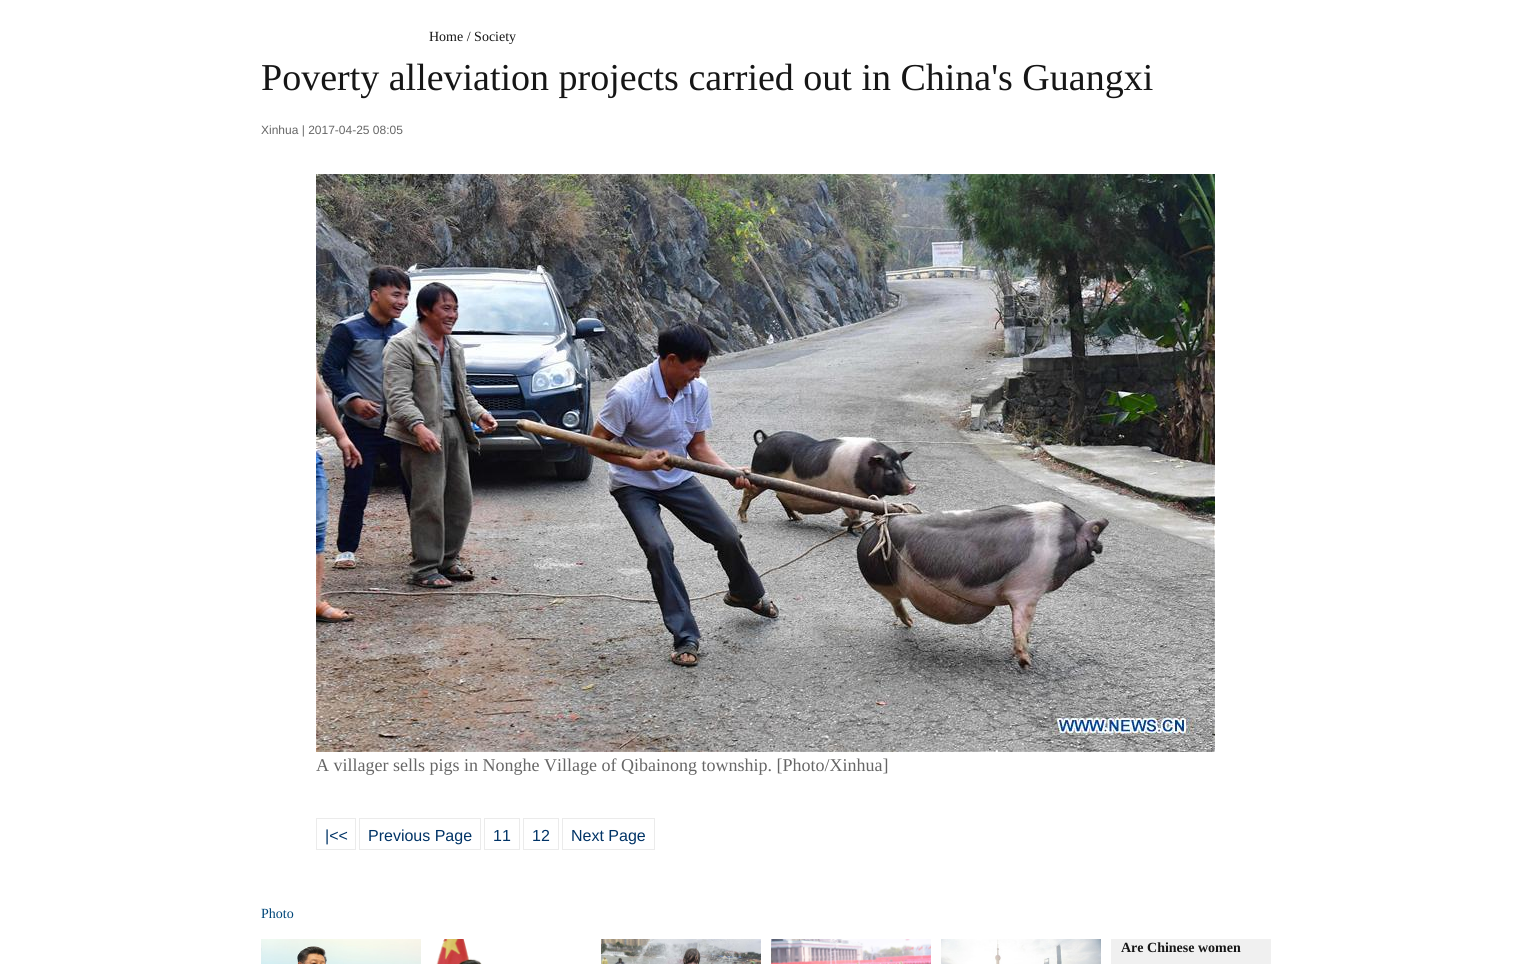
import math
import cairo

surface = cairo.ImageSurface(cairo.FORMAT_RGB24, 1531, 964)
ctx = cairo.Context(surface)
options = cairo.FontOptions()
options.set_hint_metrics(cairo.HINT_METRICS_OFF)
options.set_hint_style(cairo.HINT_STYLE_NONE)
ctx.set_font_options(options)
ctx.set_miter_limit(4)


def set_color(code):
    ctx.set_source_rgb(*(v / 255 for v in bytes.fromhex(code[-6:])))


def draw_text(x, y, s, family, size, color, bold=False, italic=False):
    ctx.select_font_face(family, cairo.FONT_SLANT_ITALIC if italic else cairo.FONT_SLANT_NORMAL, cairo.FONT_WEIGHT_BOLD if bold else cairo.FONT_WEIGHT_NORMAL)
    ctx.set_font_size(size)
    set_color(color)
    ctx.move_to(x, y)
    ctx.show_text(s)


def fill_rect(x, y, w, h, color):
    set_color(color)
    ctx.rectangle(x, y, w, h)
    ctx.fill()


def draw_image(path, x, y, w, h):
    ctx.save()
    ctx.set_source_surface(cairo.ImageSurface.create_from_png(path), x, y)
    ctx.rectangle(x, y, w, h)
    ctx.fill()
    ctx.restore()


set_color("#ffffff")
ctx.paint()
draw_text(429, 41, "Home / Society", "Liberation Serif", 14, "#161616")
draw_text(261, 90, "Poverty alleviation projects carried out in China's Guangxi", "Liberation Serif", 38, "#161616")
draw_text(261, 134, "Xinhua | 2017-04-25 08:05", "Liberation Sans", 12, "#666666")
draw_image("assets/img1.png", 316, 174, 899, 578)
draw_text(316, 771, "A villager sells pigs in Nonghe Village of Qibainong township. [Photo/Xinhua]", "Liberation Serif", 18, "#666666")
ctx.rectangle(316.5, 818.5, 39, 31)
set_color("#ebebeb")
ctx.set_line_width(1)
ctx.stroke()
draw_text(325, 841, "|<<", "Liberation Sans", 16, "#003366")
ctx.rectangle(359.5, 818.5, 121, 31)
set_color("#ebebeb")
ctx.stroke()
draw_text(368, 841, "Previous Page", "Liberation Sans", 16, "#003366")
ctx.rectangle(484.5, 818.5, 35, 31)
set_color("#ebebeb")
ctx.stroke()
draw_text(493, 841, "11", "Liberation Sans", 16, "#003366")
ctx.rectangle(523.5, 818.5, 35, 31)
set_color("#ebebeb")
ctx.stroke()
draw_text(532, 841, "12", "Liberation Sans", 16, "#003366")
ctx.rectangle(562.5, 818.5, 92, 31)
set_color("#ebebeb")
ctx.stroke()
draw_text(571, 841, "Next Page", "Liberation Sans", 16, "#003366")
draw_text(261, 918, "Photo", "Liberation Serif", 14, "#004679")
draw_image("assets/img2.png", 261, 939, 160, 25)
draw_image("assets/img3.png", 431, 939, 160, 25)
draw_image("assets/img4.png", 601, 939, 160, 25)
draw_image("assets/img5.png", 771, 939, 160, 25)
draw_image("assets/img6.png", 941, 939, 160, 25)
fill_rect(1111, 939, 160, 25, "#f0f0f0")
draw_text(1121, 952, "Are Chinese women", "Liberation Serif", 14, "#161616", bold=True)
surface.write_to_png("output.png")
